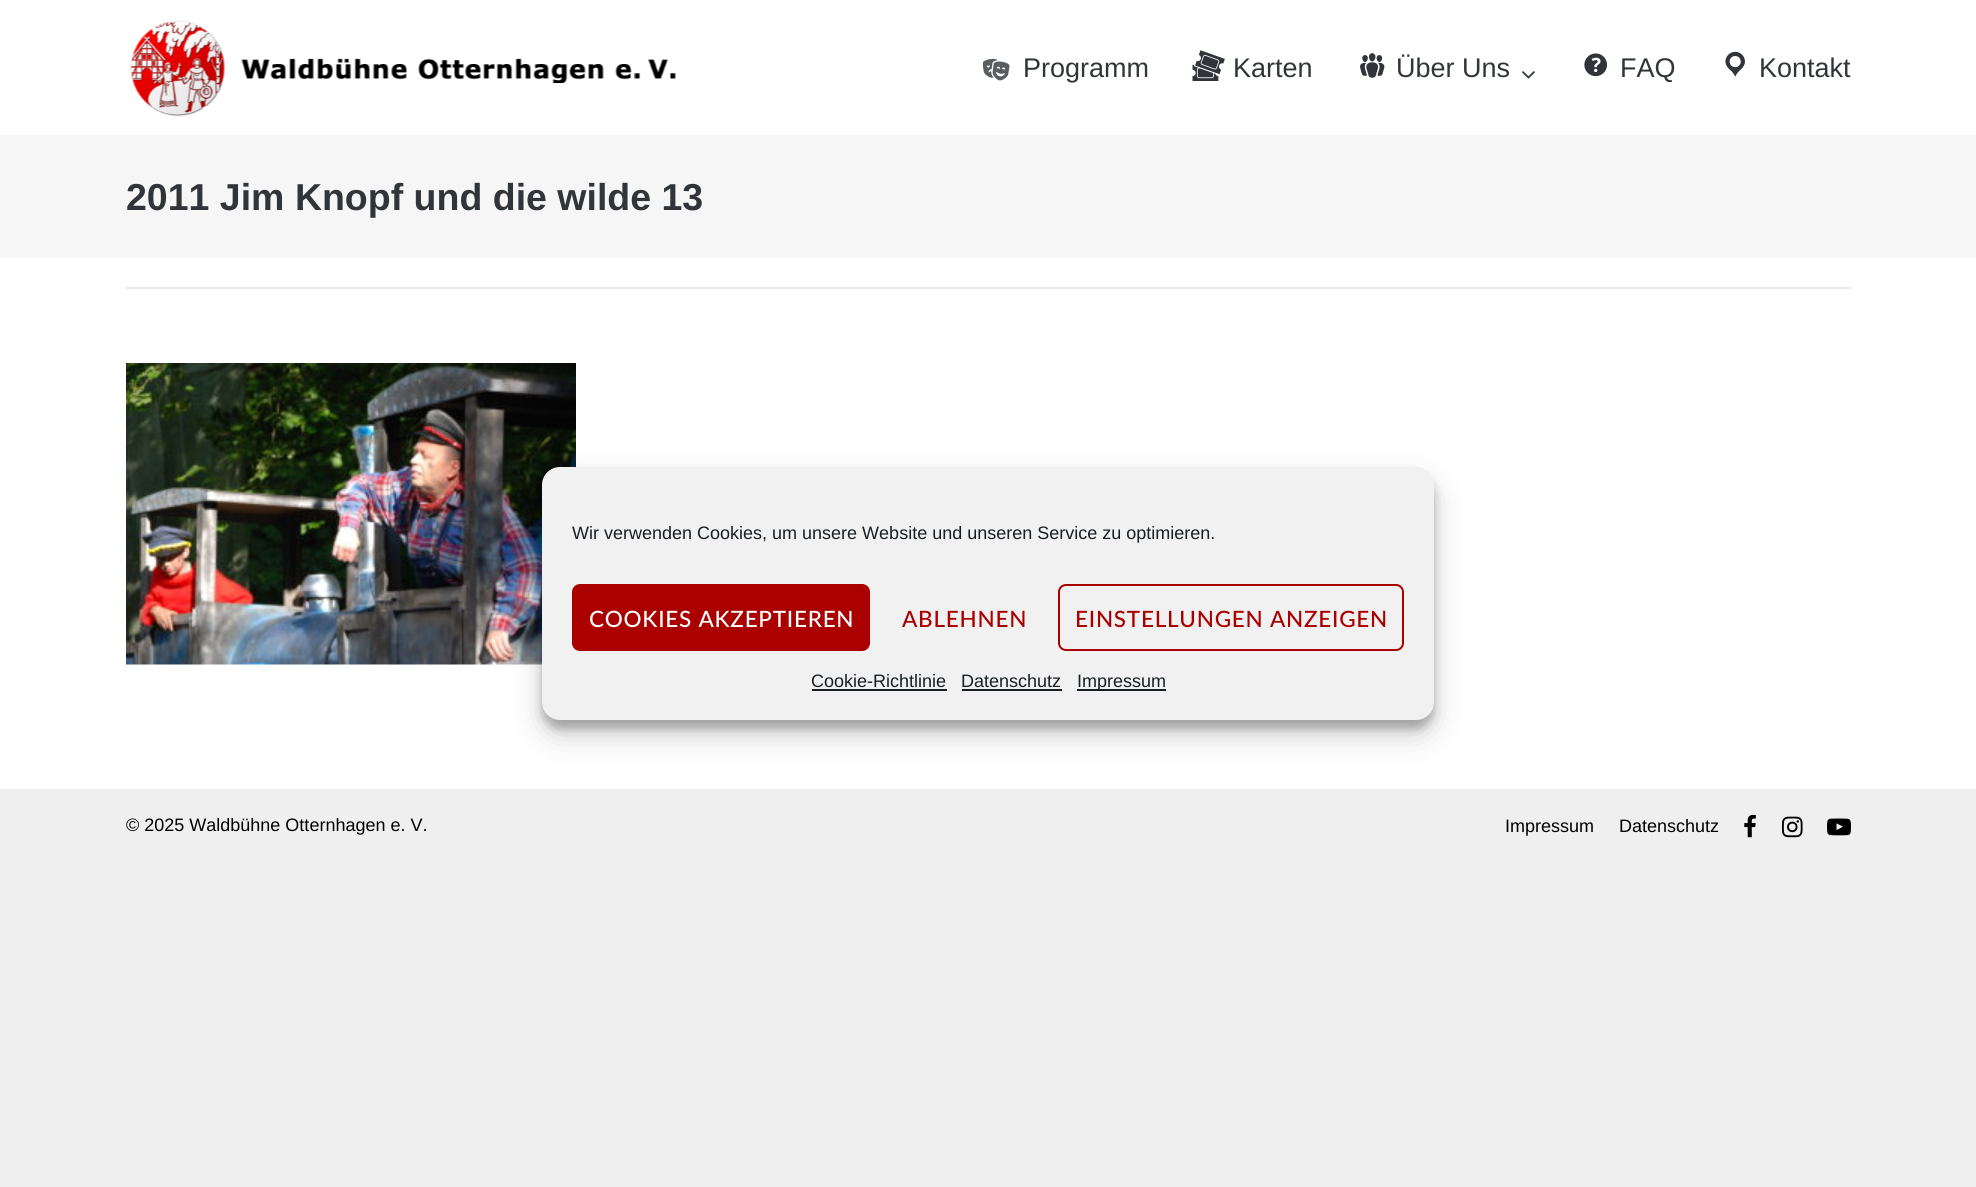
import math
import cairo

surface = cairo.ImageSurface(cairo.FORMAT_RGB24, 1976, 1187)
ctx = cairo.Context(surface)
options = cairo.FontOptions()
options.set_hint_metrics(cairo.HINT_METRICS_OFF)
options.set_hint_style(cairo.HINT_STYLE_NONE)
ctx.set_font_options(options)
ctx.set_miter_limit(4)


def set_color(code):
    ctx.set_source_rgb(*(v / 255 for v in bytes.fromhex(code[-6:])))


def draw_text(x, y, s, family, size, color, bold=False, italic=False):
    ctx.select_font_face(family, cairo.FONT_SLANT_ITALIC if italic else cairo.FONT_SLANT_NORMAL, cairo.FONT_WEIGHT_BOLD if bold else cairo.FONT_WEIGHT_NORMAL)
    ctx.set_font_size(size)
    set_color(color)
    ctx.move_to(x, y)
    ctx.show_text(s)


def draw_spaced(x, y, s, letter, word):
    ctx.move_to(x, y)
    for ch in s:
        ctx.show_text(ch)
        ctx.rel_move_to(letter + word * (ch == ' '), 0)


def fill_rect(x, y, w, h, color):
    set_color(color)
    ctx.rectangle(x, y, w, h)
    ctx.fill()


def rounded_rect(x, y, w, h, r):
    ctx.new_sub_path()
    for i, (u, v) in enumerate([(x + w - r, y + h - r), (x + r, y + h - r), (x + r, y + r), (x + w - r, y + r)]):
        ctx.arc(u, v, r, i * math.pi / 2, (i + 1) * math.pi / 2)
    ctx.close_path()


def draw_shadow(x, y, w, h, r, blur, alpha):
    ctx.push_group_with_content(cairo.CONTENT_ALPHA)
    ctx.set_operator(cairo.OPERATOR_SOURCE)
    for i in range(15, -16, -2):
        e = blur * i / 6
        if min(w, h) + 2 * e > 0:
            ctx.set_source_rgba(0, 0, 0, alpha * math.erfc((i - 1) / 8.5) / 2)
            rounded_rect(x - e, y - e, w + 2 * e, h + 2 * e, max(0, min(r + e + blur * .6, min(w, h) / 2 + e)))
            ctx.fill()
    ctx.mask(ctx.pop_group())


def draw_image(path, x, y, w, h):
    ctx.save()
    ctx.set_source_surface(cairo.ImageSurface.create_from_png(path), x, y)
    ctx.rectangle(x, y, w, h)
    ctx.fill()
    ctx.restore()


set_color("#efefef")
ctx.paint()
fill_rect(0, 0, 1976, 789, "#ffffff")
draw_image("assets/img1.png", 130, 20, 546, 97)
draw_image("assets/img2.png", 983, 58, 27, 23)
draw_text(1023, 77, "Programm", "Liberation Sans", 27, "#313539")
draw_image("assets/img3.png", 1192, 50, 33, 31)
draw_text(1233, 77, "Karten", "Liberation Sans", 27, "#313539")
draw_image("assets/img4.png", 1360, 53, 25, 25)
draw_text(1396, 77, "Über Uns", "Liberation Sans", 27, "#313539")
draw_image("assets/img5.png", 1522, 71, 13, 8)
draw_image("assets/img6.png", 1584, 53, 23, 24)
draw_text(1620, 77, "FAQ", "Liberation Sans", 27, "#313539")
draw_image("assets/img7.png", 1725, 51, 20, 26)
draw_text(1759, 77, "Kontakt", "Liberation Sans", 27, "#313539")
fill_rect(0, 135, 1976, 123, "#f6f6f7")
draw_text(126, 210, "2011 Jim Knopf und die wilde 13", "Liberation Sans", 37.5, "#313539", bold=True)
fill_rect(126, 287, 1725, 2, "#eaeaeb")
draw_image("assets/img8.png", 126, 363, 450, 302)
draw_text(126, 831, "© 2025 Waldbühne Otternhagen e. V.", "Liberation Sans", 18, "#000000")
draw_text(1505, 832, "Impressum", "Liberation Sans", 18, "#000000")
draw_text(1619, 832, "Datenschutz", "Liberation Sans", 18, "#000000")
draw_image("assets/img9.png", 1744, 814, 12, 24)
draw_image("assets/img10.png", 1782, 816, 21, 22)
draw_image("assets/img11.png", 1827, 818, 24, 18)
set_color("#000000")
draw_shadow(542, 476, 892, 253, 18, 4.5, 0.23)
draw_shadow(542, 482, 892, 253, 18, 15, 0.19)
set_color("#f1f1f1")
rounded_rect(542, 467, 892, 253, 18)
ctx.fill()
draw_text(572, 539, "Wir verwenden Cookies, um unsere Website und unseren Service zu optimieren.", "Liberation Sans", 18, "#191e23")
set_color("#aa0000")
rounded_rect(573, 585, 296, 65, 7)
ctx.fill_preserve()
ctx.stroke()
ctx.select_font_face("Lato Medium")
ctx.set_font_size(22.5)
set_color("#ffffff")
draw_spaced(589, 627, "COOKIES AKZEPTIEREN", 0.75, 0)
set_color("#aa0000")
draw_spaced(902, 627, "ABLEHNEN", 0.75, 0)
rounded_rect(1059, 585, 344, 65, 7)
ctx.stroke()
draw_spaced(1075, 627, "EINSTELLUNGEN ANZEIGEN", 0.75, 0)
draw_text(811, 687, "Cookie-Richtlinie", "Liberation Sans", 18, "#191e23")
fill_rect(812, 689, 135, 2, "#191e23")
draw_text(961, 687, "Datenschutz", "Liberation Sans", 18, "#191e23")
fill_rect(962, 689, 100, 2, "#191e23")
fill_rect(1077, 689, 89, 2, "#191e23")
draw_text(1077, 687, "Impressum", "Liberation Sans", 18, "#191e23")
surface.write_to_png("output.png")
